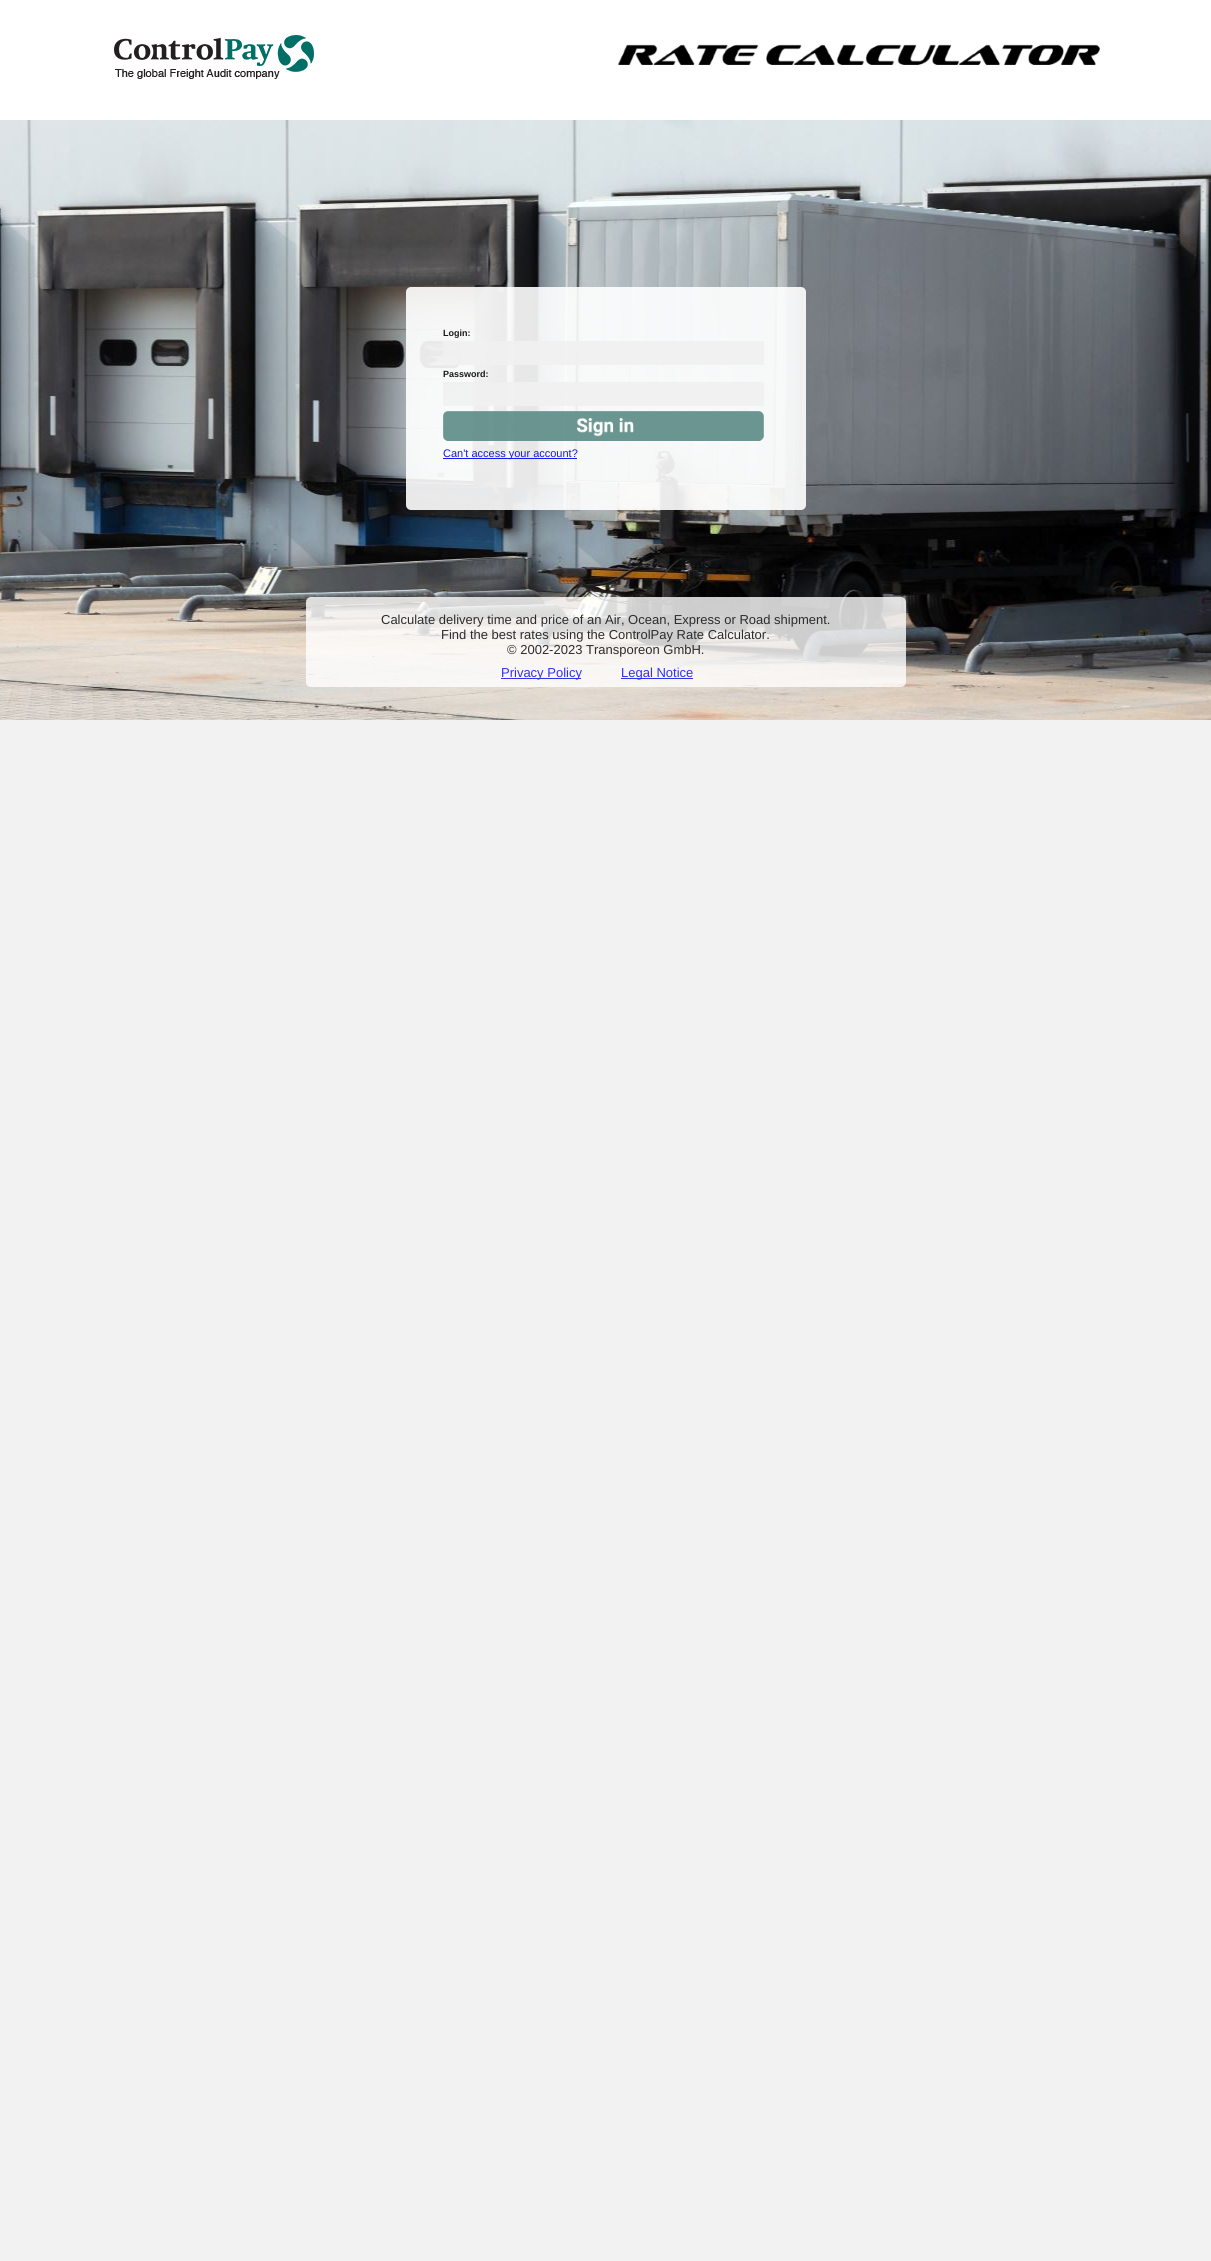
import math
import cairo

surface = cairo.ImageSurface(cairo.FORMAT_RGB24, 1211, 2261)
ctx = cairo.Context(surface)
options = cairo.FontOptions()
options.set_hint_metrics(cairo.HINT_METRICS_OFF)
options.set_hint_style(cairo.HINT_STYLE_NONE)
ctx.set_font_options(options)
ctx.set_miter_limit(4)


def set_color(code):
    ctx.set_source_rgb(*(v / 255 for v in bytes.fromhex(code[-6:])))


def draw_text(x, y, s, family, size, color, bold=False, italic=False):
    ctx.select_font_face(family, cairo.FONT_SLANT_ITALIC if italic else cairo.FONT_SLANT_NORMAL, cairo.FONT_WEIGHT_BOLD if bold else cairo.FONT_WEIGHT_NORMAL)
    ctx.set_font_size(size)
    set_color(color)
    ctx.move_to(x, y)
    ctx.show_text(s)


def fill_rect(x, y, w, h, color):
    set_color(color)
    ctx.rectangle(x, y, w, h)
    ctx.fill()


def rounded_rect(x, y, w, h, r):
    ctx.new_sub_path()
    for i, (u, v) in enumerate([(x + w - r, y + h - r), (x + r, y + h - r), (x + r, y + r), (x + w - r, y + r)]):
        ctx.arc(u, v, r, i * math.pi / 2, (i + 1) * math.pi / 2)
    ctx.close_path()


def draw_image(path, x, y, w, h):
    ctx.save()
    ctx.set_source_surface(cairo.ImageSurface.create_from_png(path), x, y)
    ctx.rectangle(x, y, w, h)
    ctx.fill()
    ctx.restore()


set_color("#f2f2f2")
ctx.paint()
draw_image("assets/img1.png", 0, 120, 1211, 600)
fill_rect(0, 0, 1211, 120, "#ffffff")
draw_image("assets/img2.png", 114, 35, 200, 44)
draw_image("assets/img3.png", 617, 44, 483, 21)
ctx.set_source_rgba(1, 1, 1, 0.9)
rounded_rect(406, 287, 400, 223, 5)
ctx.fill()
draw_text(443, 336, "Login:", "Liberation Sans", 9, "#191919", bold=True)
ctx.set_source_rgba(0.945, 0.945, 0.945, 0.9)
ctx.rectangle(443, 341, 321, 24)
ctx.fill()
draw_text(443, 377, "Password:", "Liberation Sans", 9, "#191919", bold=True)
ctx.set_source_rgba(0.945, 0.945, 0.945, 0.9)
ctx.rectangle(443, 382, 321, 24)
ctx.fill()
draw_image("assets/img4.png", 443, 411, 321, 30)
ctx.set_source_rgba(0, 0, 0.933, 0.9)
ctx.rectangle(443, 458, 134, 1)
ctx.fill()
draw_text(443, 457, "Can't access your account?", "Liberation Sans", 11, "#1818ee")
ctx.set_source_rgba(1, 1, 1, 0.8)
rounded_rect(306, 597, 600, 90, 5)
ctx.fill()
draw_text(381, 624, "Calculate delivery time and price of an Air, Ocean, Express or Road shipment.", "Liberation Sans", 13, "#2c2c2c")
draw_text(441, 639, "Find the best rates using the ControlPay Rate Calculator.", "Liberation Sans", 13, "#2c2c2c")
draw_text(507, 654, "© 2002-2023 Transporeon GmbH.", "Liberation Sans", 13, "#2c2c2c")
ctx.set_source_rgba(0, 0, 0.933, 0.8)
ctx.rectangle(501, 678, 80, 1)
ctx.fill()
draw_text(501, 677, "Privacy Policy", "Liberation Sans", 13, "#3131ef")
ctx.set_source_rgba(0, 0, 0.933, 0.8)
ctx.rectangle(621, 678, 72, 1)
ctx.fill()
draw_text(621, 677, "Legal Notice", "Liberation Sans", 13, "#3131ef")
surface.write_to_png("output.png")
